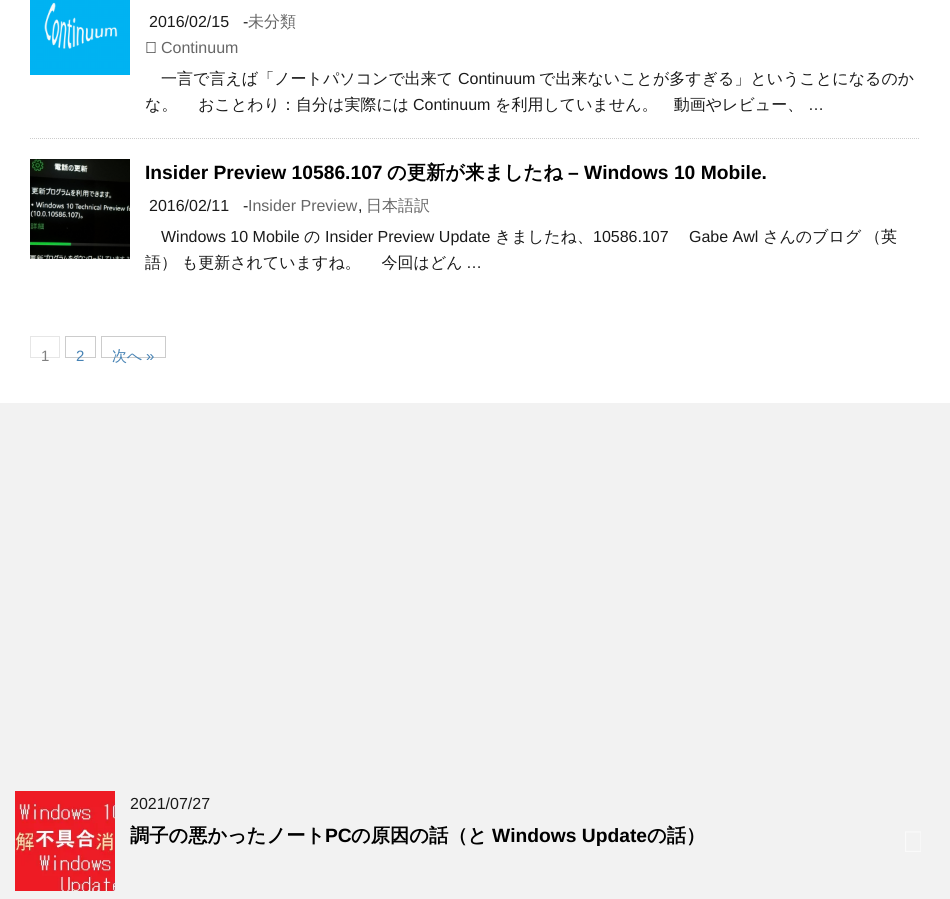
import math
import cairo

surface = cairo.ImageSurface(cairo.FORMAT_RGB24, 950, 899)
ctx = cairo.Context(surface)
options = cairo.FontOptions()
options.set_hint_metrics(cairo.HINT_METRICS_OFF)
options.set_hint_style(cairo.HINT_STYLE_NONE)
ctx.set_font_options(options)
ctx.set_miter_limit(4)


def set_color(code):
    ctx.set_source_rgb(*(v / 255 for v in bytes.fromhex(code[-6:])))


def draw_text(x, y, s, family, size, color, bold=False, italic=False):
    ctx.select_font_face(family, cairo.FONT_SLANT_ITALIC if italic else cairo.FONT_SLANT_NORMAL, cairo.FONT_WEIGHT_BOLD if bold else cairo.FONT_WEIGHT_NORMAL)
    ctx.set_font_size(size)
    set_color(color)
    ctx.move_to(x, y)
    ctx.show_text(s)


def fill_rect(x, y, w, h, color):
    set_color(color)
    ctx.rectangle(x, y, w, h)
    ctx.fill()


def draw_image(path, x, y, w, h):
    ctx.save()
    ctx.set_source_surface(cairo.ImageSurface.create_from_png(path), x, y)
    ctx.rectangle(x, y, w, h)
    ctx.fill()
    ctx.restore()


set_color("#f2f2f2")
ctx.paint()
fill_rect(0, 0, 950, 403, "#ffffff")
ctx.new_path()
ctx.move_to(30, 138.5)
ctx.line_to(920, 138.5)
set_color("#cccccc")
ctx.set_line_width(1)
ctx.set_dash([1, 1])
ctx.stroke()
draw_image("assets/img1.png", 30, 0, 100, 75)
draw_text(243, 27, "-", "Liberation Sans", 16, "#1a1a1a")
draw_text(248, 27, "未分類", "WenQuanYi Zen Hei Medium", 16, "#666666")
draw_image("assets/img2.png", 146, 42, 10, 11)
draw_text(161, 53, "Continuum", "Liberation Sans", 16, "#666666")
draw_text(149, 27, "2016/02/15", "Liberation Sans", 16, "#1a1a1a")
draw_text(161, 84, "一言で言えば「ノートパソコンで出来て", "WenQuanYi Zen Hei Medium", 16, "#1a1a1a")
draw_text(458, 84, "Continuum", "Liberation Sans", 16, "#1a1a1a")
draw_text(539, 84, "で出来ないことが多すぎる」ということになるのか", "WenQuanYi Zen Hei Medium", 16, "#1a1a1a")
draw_text(145, 110, "な。 　おことわり：自分は実際には", "WenQuanYi Zen Hei Medium", 16, "#1a1a1a")
draw_text(413, 110, "Continuum", "Liberation Sans", 16, "#1a1a1a")
draw_text(495, 110, "を利用していません。　動画やレビュー、", "WenQuanYi Zen Hei Medium", 16, "#1a1a1a")
draw_text(808, 110, "…", "Liberation Sans", 16, "#1a1a1a")
draw_image("assets/img3.png", 30, 159, 100, 100)
draw_text(145, 179, "Insider Preview 10586.107", "Liberation Sans", 19.25, "#000000", bold=True)
draw_text(387, 179, "の更新が来ましたね", "WenQuanYi Zen Hei", 19.25, "#000000", bold=True)
draw_text(568, 179, "– Windows 10 Mobile.", "Liberation Sans", 19.25, "#000000", bold=True)
draw_text(149, 211, "2016/02/11", "Liberation Sans", 16, "#1a1a1a")
draw_text(243, 211, "-", "Liberation Sans", 16, "#1a1a1a")
draw_text(248, 211, "Insider Preview", "Liberation Sans", 16, "#666666")
draw_text(366, 211, "日本語訳", "WenQuanYi Zen Hei Medium", 16, "#666666")
draw_text(358, 211, ",", "Liberation Sans", 16, "#1a1a1a")
draw_text(161, 242, "Windows 10 Mobile", "Liberation Sans", 16, "#1a1a1a")
draw_text(304, 242, "の", "WenQuanYi Zen Hei Medium", 16, "#1a1a1a")
draw_text(325, 242, "Insider Preview Update", "Liberation Sans", 16, "#1a1a1a")
draw_text(495, 242, "きましたね、", "WenQuanYi Zen Hei Medium", 16, "#1a1a1a")
draw_text(593, 242, "10586.107", "Liberation Sans", 16, "#1a1a1a")
draw_text(689, 242, "Gabe Awl", "Liberation Sans", 16, "#1a1a1a")
draw_text(763, 242, "さんのブログ", "WenQuanYi Zen Hei Medium", 16, "#1a1a1a")
draw_text(865, 242, "（英", "WenQuanYi Zen Hei Medium", 16, "#1a1a1a")
draw_text(145, 268, "語） も更新されていますね。 　今回はどん", "WenQuanYi Zen Hei Medium", 16, "#1a1a1a")
draw_text(466, 268, "…", "Liberation Sans", 16, "#1a1a1a")
ctx.rectangle(30.5, 336.5, 29, 21)
set_color("#e6e6e6")
ctx.set_dash([])
ctx.stroke()
draw_text(41, 361, "1", "Liberation Sans", 15, "#808080")
ctx.rectangle(65.5, 336.5, 30, 21)
set_color("#cccccc")
ctx.stroke()
draw_text(76, 361, "2", "Liberation Sans", 15, "#4682b4")
ctx.rectangle(101.5, 336.5, 64, 21)
set_color("#cccccc")
ctx.stroke()
draw_text(112, 361, "次へ", "WenQuanYi Zen Hei Medium", 15, "#4682b4")
draw_text(146, 361, "»", "Liberation Sans", 15, "#4682b4")
draw_image("assets/img4.png", 15, 791, 100, 100)
draw_text(130, 809, "2021/07/27", "Liberation Sans", 16, "#1a1a1a")
draw_text(130, 842, "調子の悪かったノート", "WenQuanYi Zen Hei", 19.25, "#000000", bold=True)
draw_text(325, 842, "PC", "Liberation Sans", 19.25, "#000000", bold=True)
draw_text(351, 842, "の原因の話（と", "WenQuanYi Zen Hei", 19.25, "#000000", bold=True)
draw_text(492, 842, "Windows Update", "Liberation Sans", 19.25, "#000000", bold=True)
draw_text(647, 842, "の話）", "WenQuanYi Zen Hei", 19.25, "#000000", bold=True)
draw_image("assets/img5.png", 905, 831, 16, 21)
surface.write_to_png("output.png")
